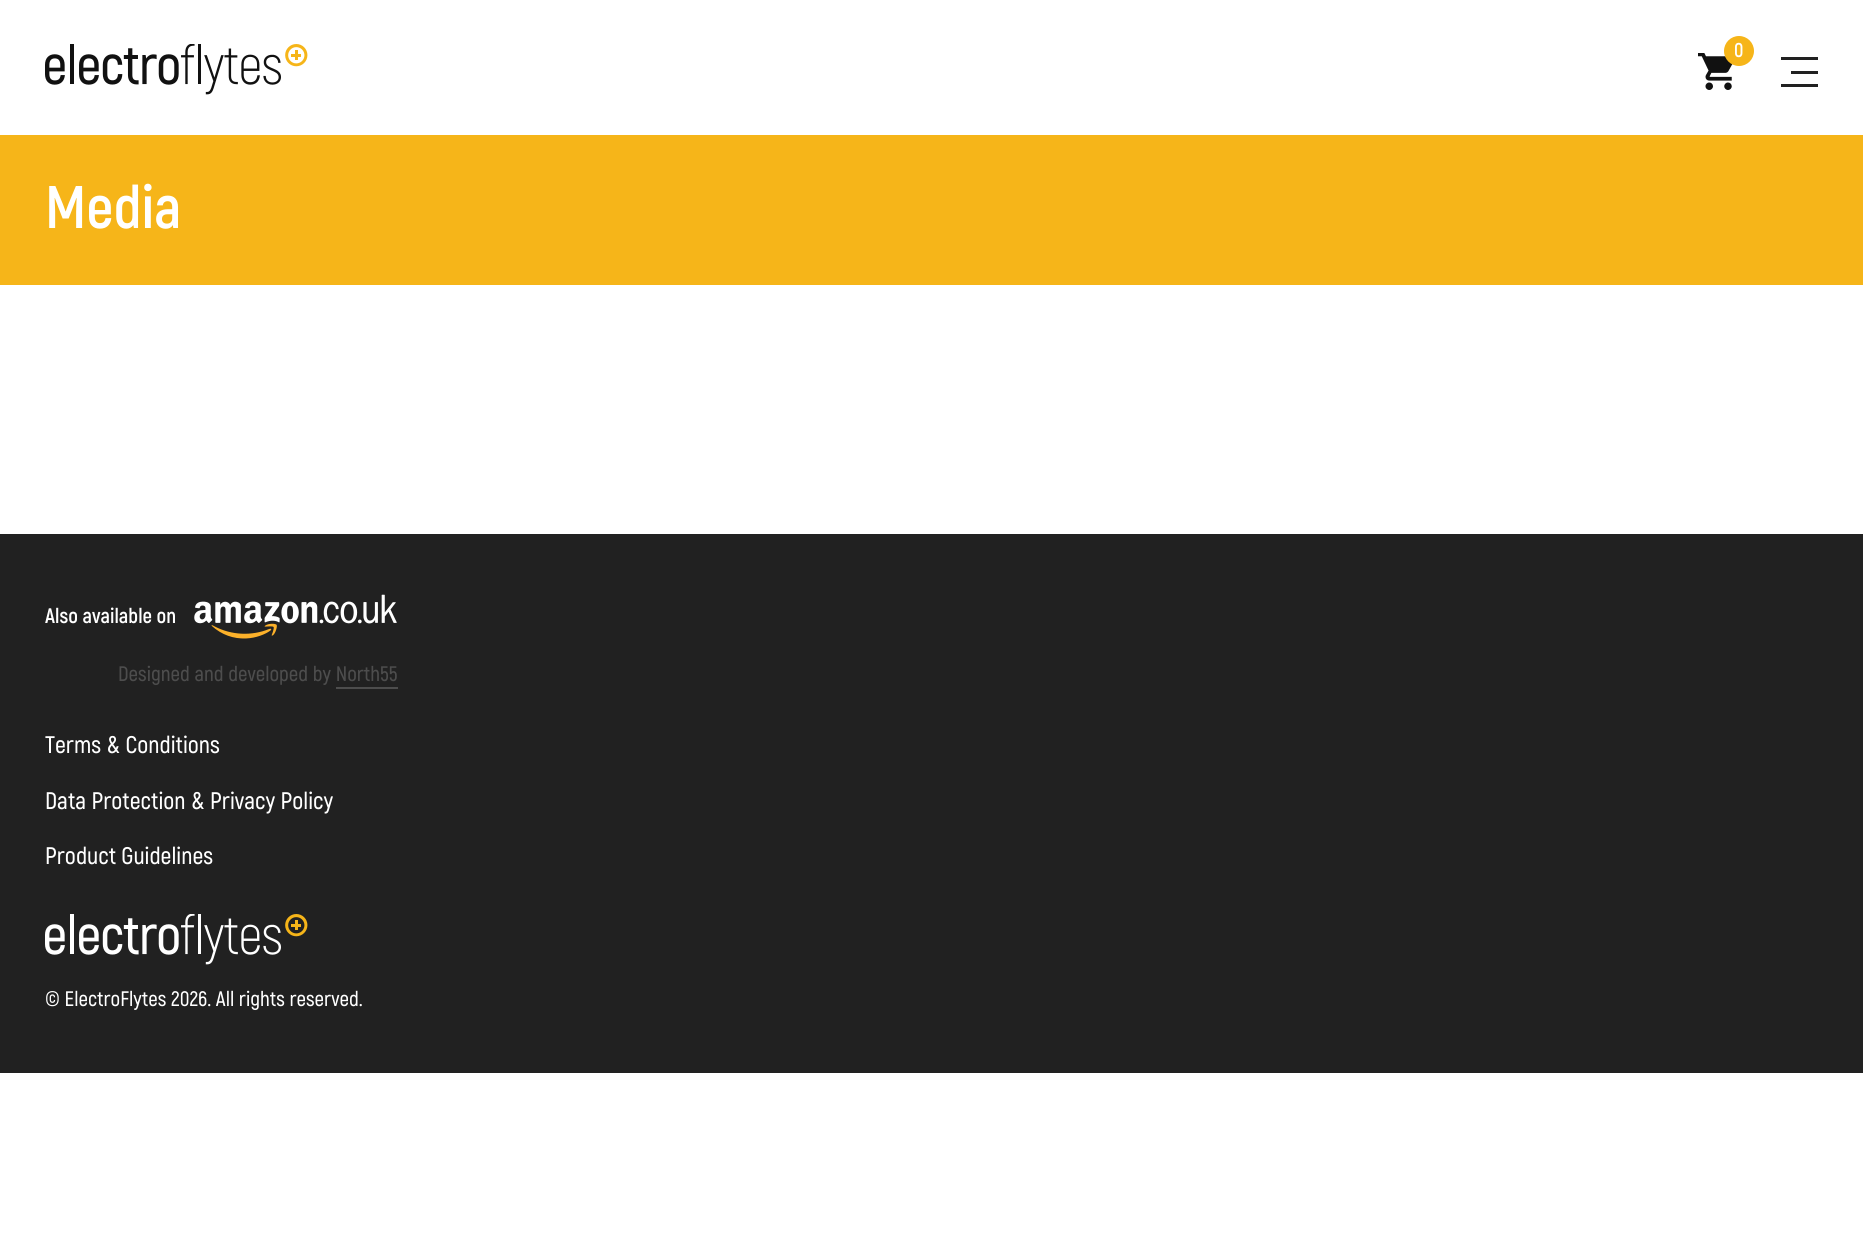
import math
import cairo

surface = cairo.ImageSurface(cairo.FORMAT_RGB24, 1863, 1237)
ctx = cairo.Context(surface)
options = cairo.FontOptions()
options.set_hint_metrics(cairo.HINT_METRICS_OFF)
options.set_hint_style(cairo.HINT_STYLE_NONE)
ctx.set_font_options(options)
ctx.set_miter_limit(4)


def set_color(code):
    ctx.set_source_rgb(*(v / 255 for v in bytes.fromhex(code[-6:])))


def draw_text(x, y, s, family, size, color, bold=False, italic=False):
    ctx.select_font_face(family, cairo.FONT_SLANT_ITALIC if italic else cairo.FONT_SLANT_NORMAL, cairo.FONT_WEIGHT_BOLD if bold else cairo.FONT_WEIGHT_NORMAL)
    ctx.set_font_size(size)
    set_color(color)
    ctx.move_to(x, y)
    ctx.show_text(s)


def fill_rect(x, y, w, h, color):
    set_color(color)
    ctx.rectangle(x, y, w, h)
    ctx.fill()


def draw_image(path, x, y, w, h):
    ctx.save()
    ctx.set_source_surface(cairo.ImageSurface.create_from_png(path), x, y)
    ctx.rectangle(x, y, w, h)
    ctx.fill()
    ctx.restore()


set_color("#ffffff")
ctx.paint()
draw_image("assets/img1.png", 45, 44, 263, 51)
draw_image("assets/img2.png", 1698, 53, 35, 37)
set_color("#f6b519")
ctx.arc(1739, 51, 15, 0, 2 * math.pi)
ctx.fill()
draw_text(1734, 57, "0", "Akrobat", 20, "#ffffff", bold=True)
fill_rect(1781, 57, 37, 3, "#212121")
fill_rect(1791, 71, 27, 3, "#212121")
fill_rect(1781, 84, 37, 3, "#212121")
fill_rect(0, 135, 1863, 150, "#f6b519")
draw_text(45, 228, "Media", "Akrobat", 60, "#ffffff", bold=True)
fill_rect(0, 534, 1863, 539, "#212121")
draw_text(45, 623, "Also available on", "Akrobat", 21, "#ffffff", bold=True)
draw_image("assets/img3.png", 194, 594, 203, 45)
draw_text(118, 681, "Designed and developed by North55", "Akrobat SemiBold", 21, "#4d4d4d")
fill_rect(336, 687, 62, 2, "#4d4d4d")
draw_text(45, 753, "Terms & Conditions", "Akrobat SemiBold", 24, "#ffffff")
draw_text(45, 809, "Data Protection & Privacy Policy", "Akrobat SemiBold", 24, "#ffffff")
draw_text(45, 864, "Product Guidelines", "Akrobat SemiBold", 24, "#ffffff")
draw_image("assets/img4.png", 45, 914, 263, 51)
draw_text(45, 1006, "© ElectroFlytes 2026. All rights reserved.", "Akrobat SemiBold", 21, "#ffffff")
surface.write_to_png("output.png")
